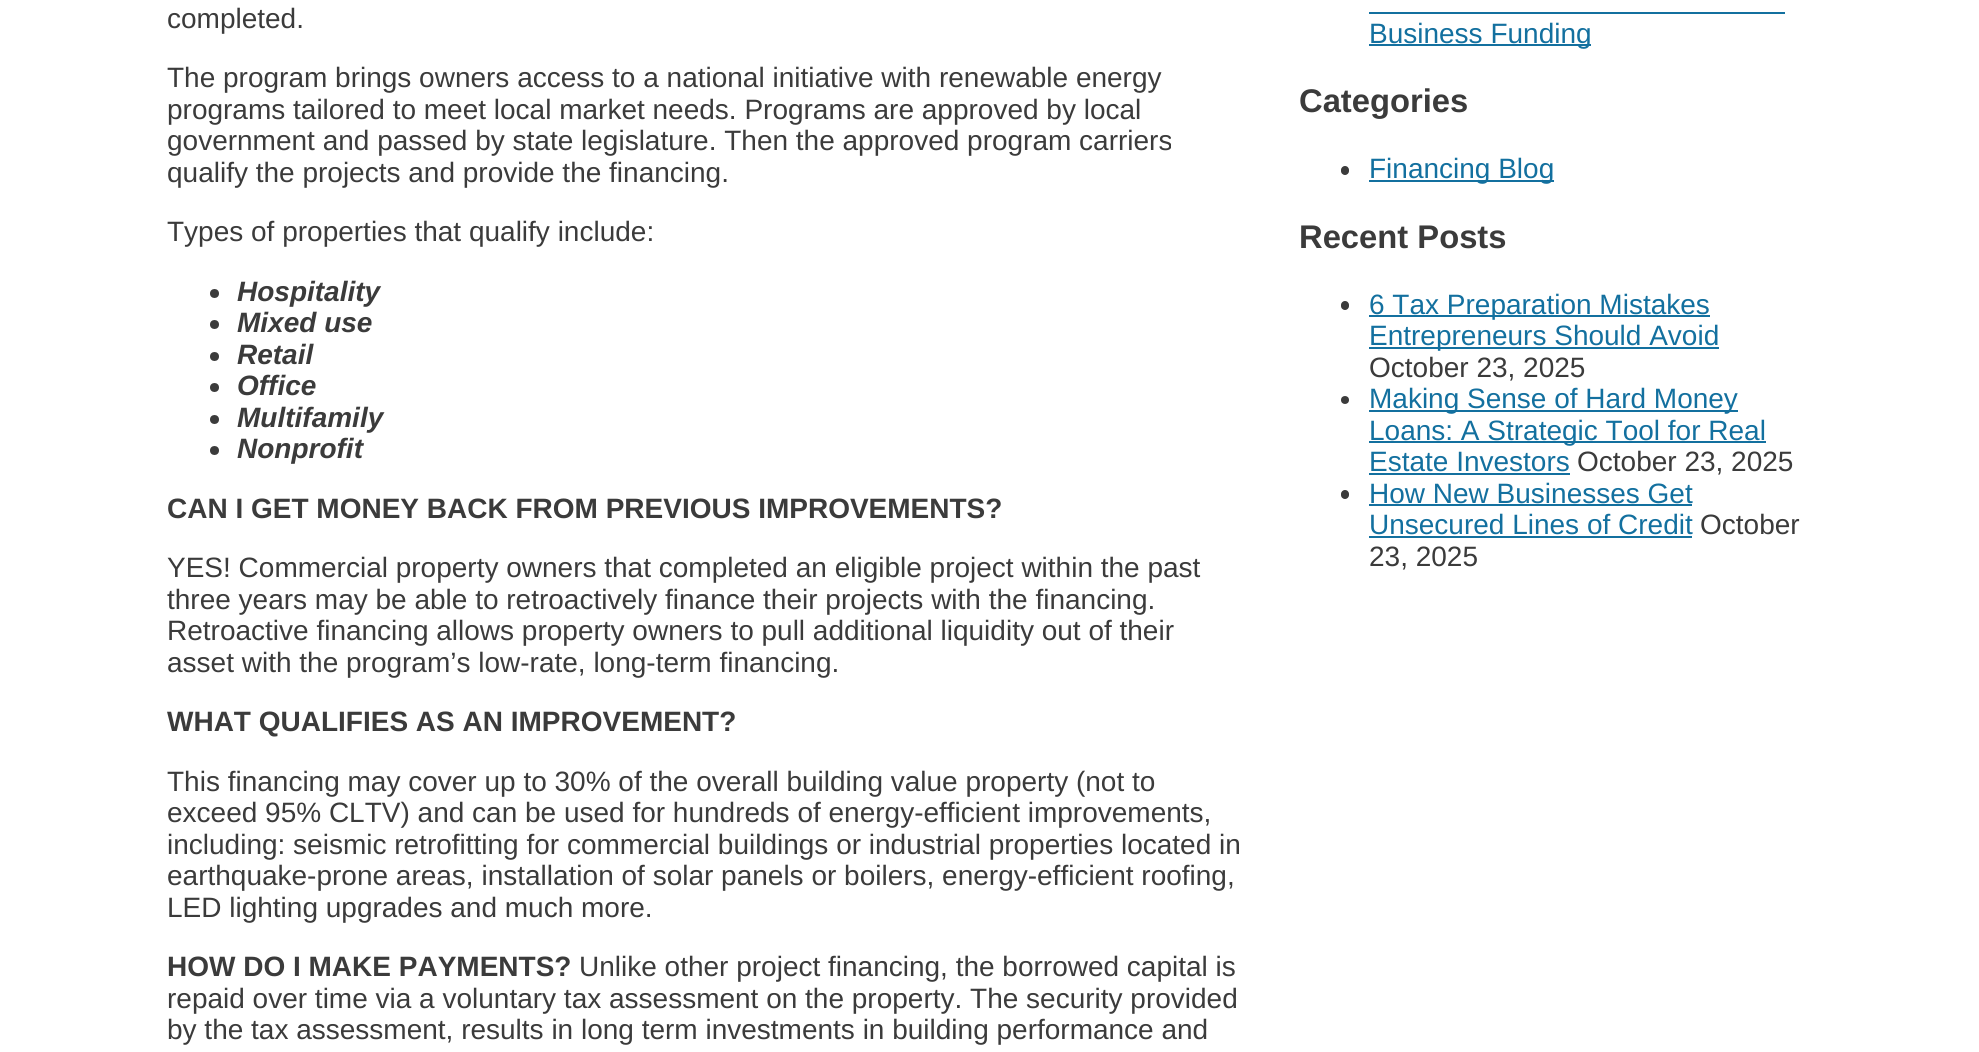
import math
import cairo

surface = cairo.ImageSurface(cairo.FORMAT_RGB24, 1979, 1052)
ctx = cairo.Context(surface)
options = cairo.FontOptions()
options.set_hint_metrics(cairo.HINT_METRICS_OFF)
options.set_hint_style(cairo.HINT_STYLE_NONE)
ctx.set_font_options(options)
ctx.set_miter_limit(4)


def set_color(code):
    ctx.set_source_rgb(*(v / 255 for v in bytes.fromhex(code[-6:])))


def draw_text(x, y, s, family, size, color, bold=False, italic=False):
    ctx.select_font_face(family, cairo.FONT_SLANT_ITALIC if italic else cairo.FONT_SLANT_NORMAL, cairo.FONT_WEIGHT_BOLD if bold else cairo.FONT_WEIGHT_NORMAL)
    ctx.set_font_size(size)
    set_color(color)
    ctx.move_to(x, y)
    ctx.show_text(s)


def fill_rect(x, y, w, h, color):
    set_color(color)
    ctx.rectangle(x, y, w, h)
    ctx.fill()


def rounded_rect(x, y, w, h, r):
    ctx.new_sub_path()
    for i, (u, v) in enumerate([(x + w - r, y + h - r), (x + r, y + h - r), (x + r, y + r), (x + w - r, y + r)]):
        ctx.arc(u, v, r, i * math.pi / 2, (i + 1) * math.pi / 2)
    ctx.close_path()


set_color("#ffffff")
ctx.paint()
draw_text(167, 28, "completed.", "Liberation Sans", 28, "#3b3b3b")
draw_text(167, 87, "The program brings owners access to a national initiative with renewable energy", "Liberation Sans", 28, "#3b3b3b")
draw_text(167, 119, "programs tailored to meet local market needs. Programs are approved by local", "Liberation Sans", 28, "#3b3b3b")
draw_text(167, 150, "government and passed by state legislature. Then the approved program carriers", "Liberation Sans", 28, "#3b3b3b")
draw_text(167, 182, "qualify the projects and provide the financing.", "Liberation Sans", 28, "#3b3b3b")
draw_text(167, 241, "Types of properties that qualify include:", "Liberation Sans", 28, "#3b3b3b")
ctx.new_path()
ctx.arc(214.5, 293.5, 4.5, 0, 2 * math.pi)
ctx.fill()
draw_text(237, 301, "Hospitality", "Liberation Sans", 28, "#3b3b3b", bold=True, italic=True)
ctx.new_path()
ctx.arc(214.5, 324.5, 4.5, 0, 2 * math.pi)
ctx.fill()
draw_text(237, 332, "Mixed use", "Liberation Sans", 28, "#3b3b3b", bold=True, italic=True)
ctx.new_path()
ctx.arc(214.5, 356.5, 4.5, 0, 2 * math.pi)
ctx.fill()
draw_text(237, 364, "Retail", "Liberation Sans", 28, "#3b3b3b", bold=True, italic=True)
ctx.new_path()
ctx.arc(214.5, 387.5, 4.5, 0, 2 * math.pi)
ctx.fill()
draw_text(237, 395, "Office", "Liberation Sans", 28, "#3b3b3b", bold=True, italic=True)
ctx.new_path()
ctx.arc(214.5, 419.5, 4.5, 0, 2 * math.pi)
ctx.fill()
draw_text(237, 427, "Multifamily", "Liberation Sans", 28, "#3b3b3b", bold=True, italic=True)
ctx.new_path()
ctx.arc(214.5, 450.5, 4.5, 0, 2 * math.pi)
ctx.fill()
draw_text(237, 458, "Nonprofit", "Liberation Sans", 28, "#3b3b3b", bold=True, italic=True)
draw_text(167, 518, "CAN I GET MONEY BACK FROM PREVIOUS IMPROVEMENTS?", "Liberation Sans", 28, "#3b3b3b", bold=True)
draw_text(167, 577, "YES! Commercial property owners that completed an eligible project within the past", "Liberation Sans", 28, "#3b3b3b")
draw_text(167, 609, "three years may be able to retroactively finance their projects with the financing.", "Liberation Sans", 28, "#3b3b3b")
draw_text(167, 640, "Retroactive financing allows property owners to pull additional liquidity out of their", "Liberation Sans", 28, "#3b3b3b")
draw_text(167, 672, "asset with the program’s low-rate, long-term financing.", "Liberation Sans", 28, "#3b3b3b")
draw_text(167, 731, "WHAT QUALIFIES AS AN IMPROVEMENT?", "Liberation Sans", 28, "#3b3b3b", bold=True)
draw_text(167, 791, "This financing may cover up to 30% of the overall building value property (not to", "Liberation Sans", 28, "#3b3b3b")
draw_text(167, 822, "exceed 95% CLTV) and can be used for hundreds of energy-efficient improvements,", "Liberation Sans", 28, "#3b3b3b")
draw_text(167, 854, "including: seismic retrofitting for commercial buildings or industrial properties located in", "Liberation Sans", 28, "#3b3b3b")
draw_text(167, 885, "earthquake-prone areas, installation of solar panels or boilers, energy-efficient roofing,", "Liberation Sans", 28, "#3b3b3b")
draw_text(167, 917, "LED lighting upgrades and much more.", "Liberation Sans", 28, "#3b3b3b")
draw_text(167, 976, "HOW DO I MAKE PAYMENTS?", "Liberation Sans", 28, "#3b3b3b", bold=True)
draw_text(579, 976, "Unlike other project financing, the borrowed capital is", "Liberation Sans", 28, "#3b3b3b")
draw_text(167, 1008, "repaid over time via a voluntary tax assessment on the property. The security provided", "Liberation Sans", 28, "#3b3b3b")
draw_text(167, 1039, "by the tax assessment, results in long term investments in building performance and", "Liberation Sans", 28, "#3b3b3b")
fill_rect(1369, 44, 222, 2, "#13709f")
draw_text(1369, 43, "Business Funding", "Liberation Sans", 28, "#13709f")
fill_rect(1369, 12, 416, 2, "#13709f")
draw_text(1299, 112, "Categories", "Liberation Sans", 32.75, "#3b3b3b", bold=True)
rounded_rect(1341, 166, 8, 9, 4)
ctx.fill()
fill_rect(1369, 180, 185, 2, "#13709f")
draw_text(1369, 178, "Financing Blog", "Liberation Sans", 28, "#13709f")
draw_text(1299, 248, "Recent Posts", "Liberation Sans", 32.75, "#3b3b3b", bold=True)
rounded_rect(1341, 301, 8, 9, 4)
ctx.fill()
fill_rect(1369, 315, 341, 2, "#13709f")
draw_text(1369, 314, "6 Tax Preparation Mistakes", "Liberation Sans", 28, "#13709f")
fill_rect(1369, 347, 350, 2, "#13709f")
draw_text(1369, 345, "Entrepreneurs Should Avoid", "Liberation Sans", 28, "#13709f")
draw_text(1369, 377, "October 23, 2025", "Liberation Sans", 28, "#3b3b3b")
ctx.new_path()
ctx.arc(1345, 400, 4, 0, 2 * math.pi)
ctx.fill()
fill_rect(1369, 410, 369, 2, "#13709f")
draw_text(1369, 408, "Making Sense of Hard Money", "Liberation Sans", 28, "#13709f")
fill_rect(1369, 441, 397, 2, "#13709f")
draw_text(1369, 440, "Loans: A Strategic Tool for Real", "Liberation Sans", 28, "#13709f")
draw_text(1369, 471, "Estate Investors", "Liberation Sans", 28, "#13709f")
fill_rect(1369, 473, 201, 2, "#13709f")
draw_text(1577, 471, "October 23, 2025", "Liberation Sans", 28, "#3b3b3b")
rounded_rect(1341, 490, 8, 9, 4)
ctx.fill()
draw_text(1369, 503, "How New Businesses Get", "Liberation Sans", 28, "#13709f")
fill_rect(1369, 504, 323, 2, "#13709f")
draw_text(1369, 534, "Unsecured Lines of Credit", "Liberation Sans", 28, "#13709f")
fill_rect(1369, 536, 323, 2, "#13709f")
draw_text(1700, 534, "October", "Liberation Sans", 28, "#3b3b3b")
draw_text(1369, 566, "23, 2025", "Liberation Sans", 28, "#3b3b3b")
surface.write_to_png("output.png")
